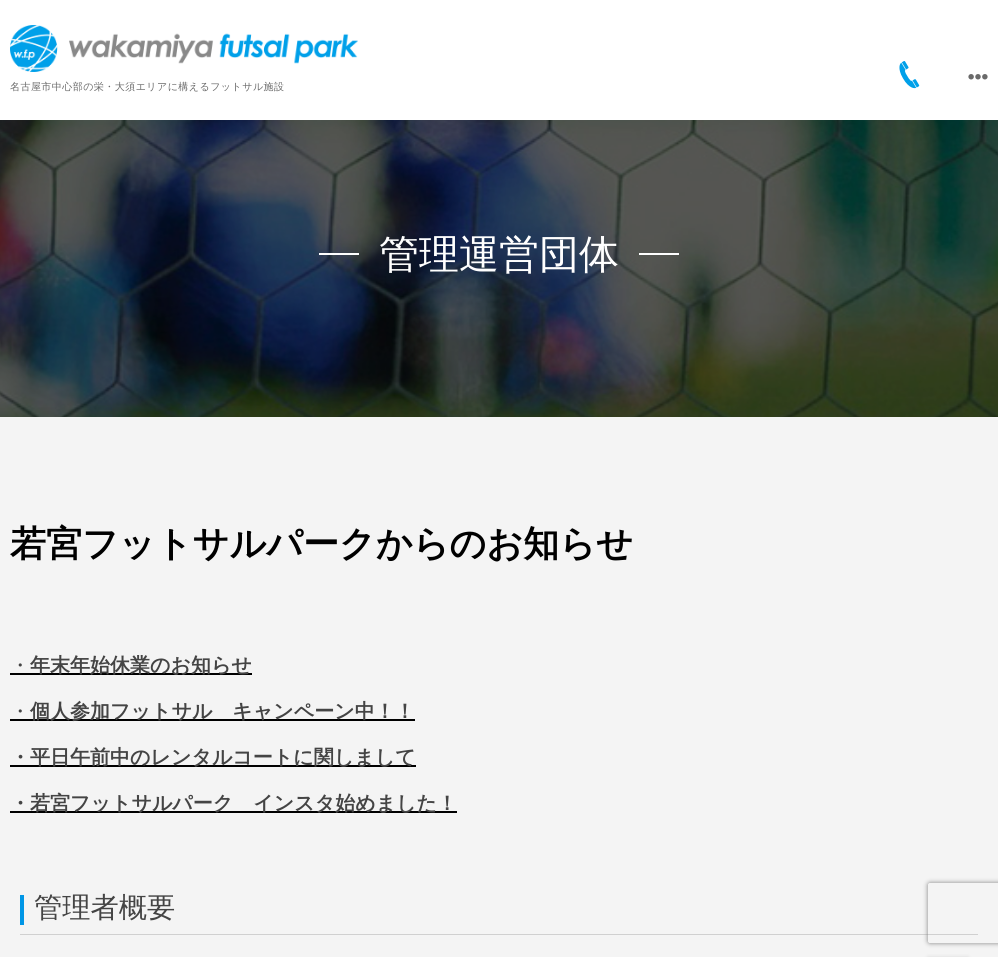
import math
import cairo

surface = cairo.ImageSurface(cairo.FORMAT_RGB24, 998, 957)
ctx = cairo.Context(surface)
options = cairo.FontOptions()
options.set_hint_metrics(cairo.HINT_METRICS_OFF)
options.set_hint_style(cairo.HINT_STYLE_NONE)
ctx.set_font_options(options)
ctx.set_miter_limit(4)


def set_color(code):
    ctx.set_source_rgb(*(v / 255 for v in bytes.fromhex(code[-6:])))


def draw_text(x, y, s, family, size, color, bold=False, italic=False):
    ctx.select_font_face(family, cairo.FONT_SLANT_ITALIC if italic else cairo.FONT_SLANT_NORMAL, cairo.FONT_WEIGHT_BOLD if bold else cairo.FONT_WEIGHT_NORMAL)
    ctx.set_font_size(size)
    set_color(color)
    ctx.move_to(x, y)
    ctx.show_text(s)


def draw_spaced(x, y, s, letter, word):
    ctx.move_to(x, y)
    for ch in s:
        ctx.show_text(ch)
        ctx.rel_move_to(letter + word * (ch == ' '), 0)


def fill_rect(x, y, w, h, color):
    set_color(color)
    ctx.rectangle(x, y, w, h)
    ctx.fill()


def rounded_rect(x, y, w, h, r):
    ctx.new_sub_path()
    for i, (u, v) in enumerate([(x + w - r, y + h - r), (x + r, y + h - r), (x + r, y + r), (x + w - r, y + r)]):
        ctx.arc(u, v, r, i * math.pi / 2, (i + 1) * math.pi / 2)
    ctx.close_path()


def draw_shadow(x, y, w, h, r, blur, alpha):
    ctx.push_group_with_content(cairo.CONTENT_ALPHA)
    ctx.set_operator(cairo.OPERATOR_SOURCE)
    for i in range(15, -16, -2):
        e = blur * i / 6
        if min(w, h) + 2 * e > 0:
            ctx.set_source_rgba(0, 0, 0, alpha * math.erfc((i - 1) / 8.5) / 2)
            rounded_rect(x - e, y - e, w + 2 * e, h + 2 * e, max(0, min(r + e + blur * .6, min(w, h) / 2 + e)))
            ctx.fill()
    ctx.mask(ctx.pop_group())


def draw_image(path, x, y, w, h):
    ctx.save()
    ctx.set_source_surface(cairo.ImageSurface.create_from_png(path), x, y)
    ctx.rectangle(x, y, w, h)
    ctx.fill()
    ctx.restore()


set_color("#f4f4f4")
ctx.paint()
fill_rect(0, 0, 998, 120, "#ffffff")
draw_image("assets/img1.png", 10, 25, 348, 47)
ctx.select_font_face("WenQuanYi Zen Hei Medium")
ctx.set_font_size(10)
set_color("#6a6a6a")
draw_spaced(10, 90, "名古屋市中心部の栄・大須エリアに構えるフットサル施設", 0.45, 0)
draw_image("assets/img2.png", 899, 61, 21, 28)
draw_image("assets/img3.png", 968, 74, 20, 6)
draw_image("assets/img4.png", 0, 120, 998, 297)
fill_rect(319, 253, 40, 2, "#ffffff")
draw_text(379, 268, "管理運営団体", "WenQuanYi Zen Hei Medium", 40, "#ffffff")
fill_rect(639, 253, 40, 2, "#ffffff")
draw_text(10, 556, "若宮フットサルパークからのお知らせ", "WenQuanYi Zen Hei", 36, "#000000", bold=True)
draw_text(10, 672, "・", "WenQuanYi Zen Hei Medium", 20, "#444444")
fill_rect(10, 673, 242, 2, "#000000")
draw_text(30, 672, "年末年始休業のお知らせ", "WenQuanYi Zen Hei", 20, "#444444", bold=True)
draw_text(10, 718, "・", "WenQuanYi Zen Hei Medium", 20, "#444444")
fill_rect(10, 719, 405, 2, "#000000")
draw_text(30, 718, "個人参加フットサル　キャンペーン中！！", "WenQuanYi Zen Hei", 20, "#444444", bold=True)
fill_rect(10, 765, 406, 2, "#000000")
draw_text(10, 764, "・平日午前中のレンタルコートに関しまして", "WenQuanYi Zen Hei", 20, "#444444", bold=True)
fill_rect(10, 811, 447, 2, "#000000")
draw_text(10, 810, "・若宮フットサルパーク　インスタ始めました！", "WenQuanYi Zen Hei", 20, "#444444", bold=True)
fill_rect(20, 934, 958, 1, "#d0d0d0")
fill_rect(20, 895, 4, 30, "#0096e6")
draw_text(34, 917, "管理者概要", "WenQuanYi Zen Hei Medium", 28.25, "#444444")
ctx.save()
ctx.set_fill_rule(cairo.FILL_RULE_EVEN_ODD)
ctx.new_path()
ctx.move_to(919, 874)
ctx.line_to(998, 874)
ctx.line_to(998, 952)
ctx.line_to(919, 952)
ctx.close_path()
ctx.move_to(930, 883)
ctx.line_to(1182, 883)
ctx.curve_to(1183, 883, 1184, 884, 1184, 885)
ctx.line_to(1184, 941)
ctx.curve_to(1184, 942, 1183, 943, 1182, 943)
ctx.line_to(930, 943)
ctx.curve_to(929, 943, 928, 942, 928, 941)
ctx.line_to(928, 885)
ctx.curve_to(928, 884, 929, 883, 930, 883)
ctx.close_path()
ctx.clip()
set_color("#808080")
draw_shadow(928, 883, 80, 60, 2, 2.5, 1)
ctx.restore()
set_color("#8a8a8a")
draw_shadow(928, 957, 40, 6, 0, 2, 0.24)
surface.write_to_png("output.png")
